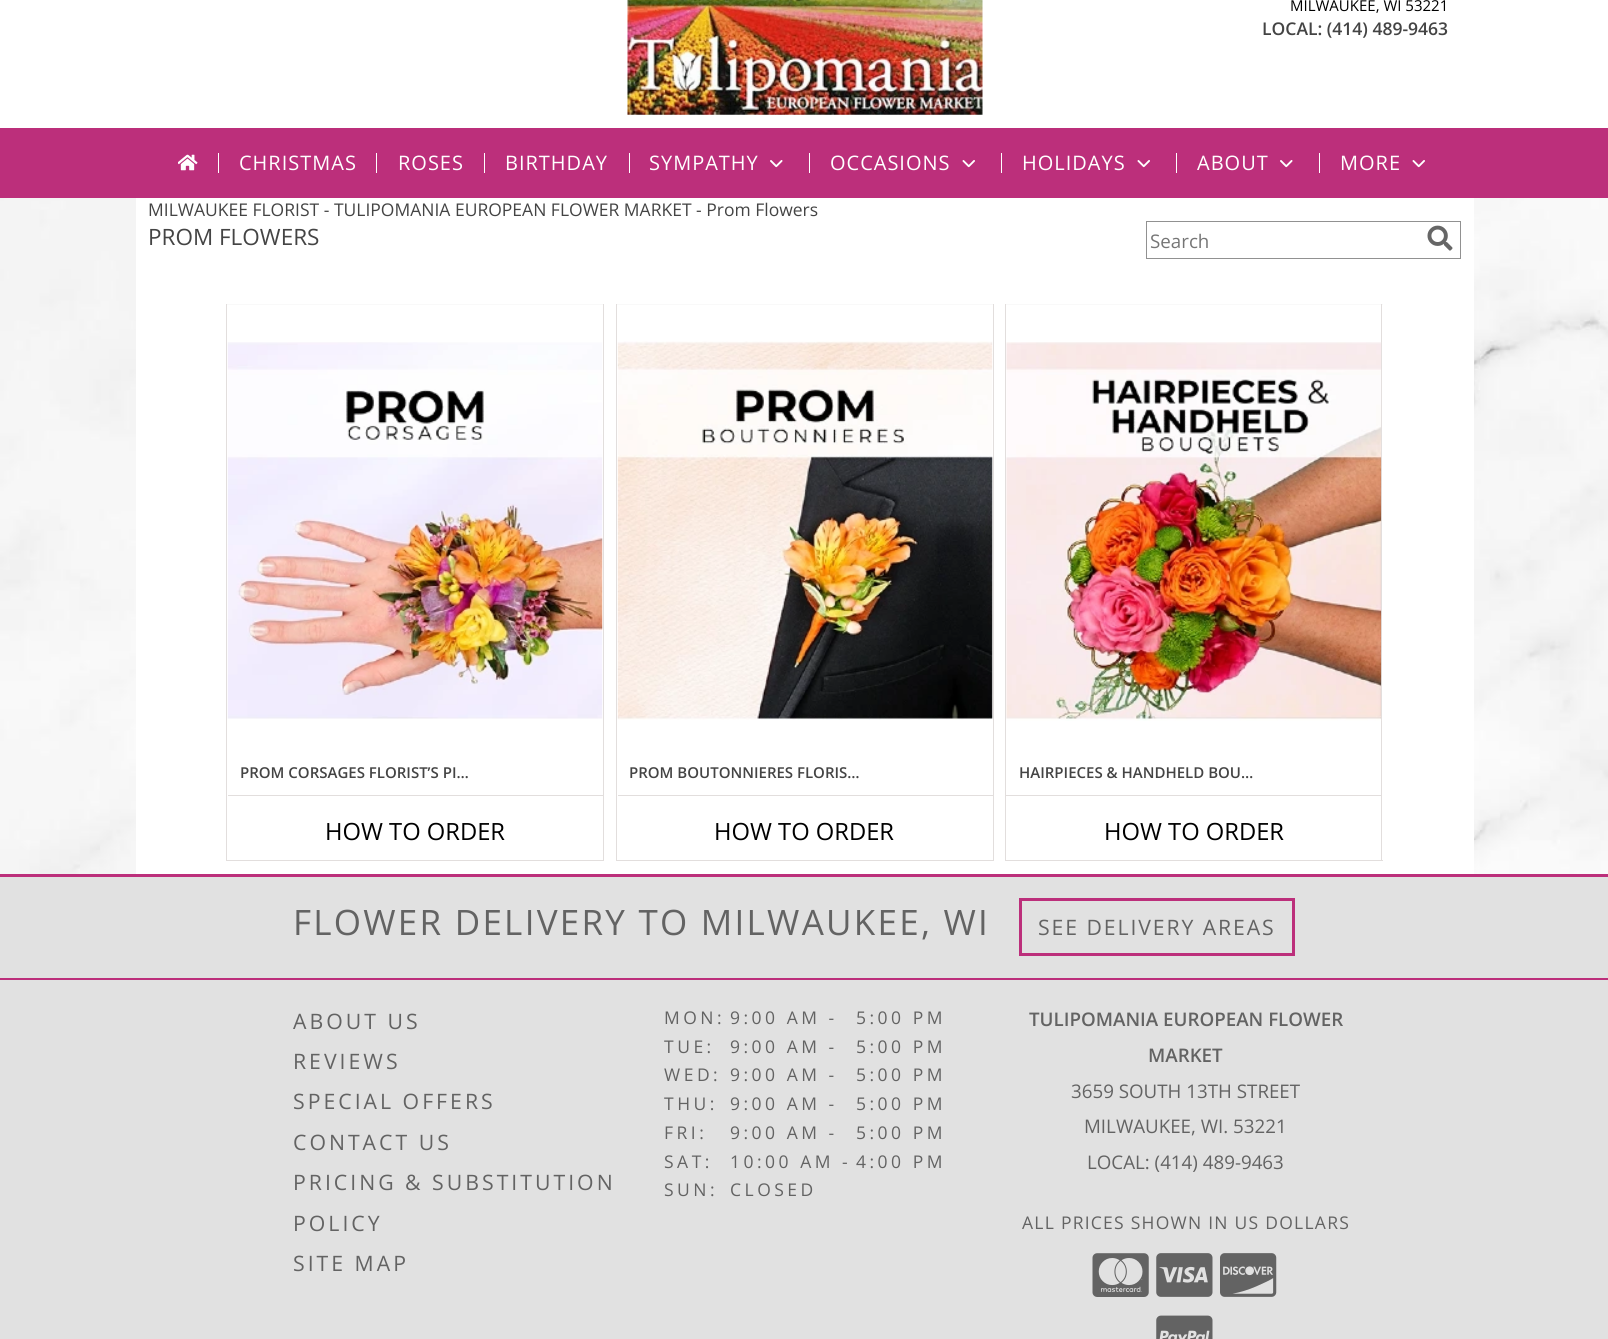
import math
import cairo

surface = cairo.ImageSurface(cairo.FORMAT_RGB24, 1608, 1339)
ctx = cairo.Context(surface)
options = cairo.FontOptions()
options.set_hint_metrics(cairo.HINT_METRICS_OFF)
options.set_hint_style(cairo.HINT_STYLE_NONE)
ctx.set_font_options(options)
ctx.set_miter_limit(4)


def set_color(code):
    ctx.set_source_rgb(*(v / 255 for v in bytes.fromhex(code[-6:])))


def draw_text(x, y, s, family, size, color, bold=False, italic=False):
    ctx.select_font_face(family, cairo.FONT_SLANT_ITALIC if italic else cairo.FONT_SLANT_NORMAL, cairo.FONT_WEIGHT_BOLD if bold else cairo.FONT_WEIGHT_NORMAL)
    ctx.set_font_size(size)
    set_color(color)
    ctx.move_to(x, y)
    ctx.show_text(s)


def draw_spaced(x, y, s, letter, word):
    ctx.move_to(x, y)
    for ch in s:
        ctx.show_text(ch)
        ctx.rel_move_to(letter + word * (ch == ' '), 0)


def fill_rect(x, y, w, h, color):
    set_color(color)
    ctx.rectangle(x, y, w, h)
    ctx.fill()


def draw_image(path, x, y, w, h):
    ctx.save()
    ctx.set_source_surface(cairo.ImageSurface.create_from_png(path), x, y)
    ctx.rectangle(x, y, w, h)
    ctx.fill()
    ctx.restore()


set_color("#ffffff")
ctx.paint()
draw_image("assets/img1.png", 0, 198, 1608, 676)
fill_rect(136, 198, 1338, 676, "#ffffff")
draw_image("assets/img2.png", 627, 0, 356, 115)
draw_text(1290, 11, "MILWAUKEE, WI 53221", "Open Sans", 15, "#000000")
draw_text(1262, 35, "LOCAL: (414) 489-9463", "Open Sans SemiBold", 17.5, "#444444")
fill_rect(0, 128, 1608, 70, "#bc2f7b")
draw_image("assets/img3.png", 178, 154, 20, 17)
fill_rect(218, 153, 1, 20, "#ffffff")
ctx.select_font_face("Open Sans")
ctx.set_font_size(20)
draw_spaced(239, 170, "CHRISTMAS", 1, 0)
fill_rect(376, 153, 1, 20, "#ffffff")
draw_spaced(398, 170, "ROSES", 1, 0)
fill_rect(484, 153, 1, 20, "#ffffff")
draw_spaced(505, 170, "BIRTHDAY", 1, 0)
fill_rect(629, 153, 1, 20, "#ffffff")
draw_spaced(649, 170, "SYMPATHY", 1, 0)
draw_image("assets/img4.png", 770, 160, 13, 8)
fill_rect(809, 153, 1, 20, "#ffffff")
draw_spaced(830, 170, "OCCASIONS", 1, 0)
draw_image("assets/img5.png", 962, 160, 13, 8)
fill_rect(1001, 153, 1, 20, "#ffffff")
draw_spaced(1022, 170, "HOLIDAYS", 1, 0)
draw_image("assets/img5.png", 1137, 160, 13, 8)
fill_rect(1176, 153, 1, 20, "#ffffff")
draw_spaced(1197, 170, "ABOUT", 1, 0)
draw_image("assets/img4.png", 1280, 160, 13, 8)
fill_rect(1319, 153, 1, 20, "#ffffff")
draw_spaced(1340, 170, "MORE", 1, 0)
draw_image("assets/img5.png", 1412, 160, 13, 8)
draw_text(148, 216, "MILWAUKEE FLORIST - TULIPOMANIA EUROPEAN FLOWER MARKET - Prom Flowers", "Open Sans", 17.5, "#444444")
draw_text(148, 245, "PROM FLOWERS", "Open Sans", 22.5, "#444444")
ctx.rectangle(1146.5, 221.5, 314, 37)
set_color("#919191")
ctx.set_line_width(1)
ctx.stroke()
draw_text(1150, 248, "Search", "Open Sans", 18.75, "#757575")
draw_image("assets/img6.png", 1427, 225, 26, 26)
fill_rect(226, 304, 378, 1, "#f9f9f9")
fill_rect(603, 304, 1, 557, "#e2dedd")
fill_rect(226, 860, 378, 1, "#e2dedd")
fill_rect(226, 304, 1, 557, "#e2dedd")
draw_image("assets/img7.png", 227, 342, 376, 377)
draw_text(240, 778, "PROM CORSAGES FLORIST’S PI…", "Open Sans SemiBold", 15, "#444444")
fill_rect(228, 795, 375, 1, "#e2dedd")
draw_text(325, 840, "HOW TO ORDER", "Open Sans", 23.75, "#000000")
fill_rect(616, 304, 378, 1, "#f9f9f9")
fill_rect(993, 304, 1, 557, "#e2dedd")
fill_rect(616, 860, 378, 1, "#e2dedd")
fill_rect(616, 304, 1, 557, "#e2dedd")
draw_image("assets/img8.png", 617, 341, 376, 379)
draw_text(629, 778, "PROM BOUTONNIERES FLORIS…", "Open Sans SemiBold", 15, "#444444")
fill_rect(618, 795, 375, 1, "#e2dedd")
draw_text(714, 840, "HOW TO ORDER", "Open Sans", 23.75, "#000000")
fill_rect(1005, 304, 378, 1, "#f9f9f9")
fill_rect(1381, 304, 1, 557, "#e2dedd")
fill_rect(1005, 860, 378, 1, "#e2dedd")
fill_rect(1005, 304, 1, 557, "#e2dedd")
draw_image("assets/img9.png", 1006, 342, 376, 379)
draw_text(1019, 778, "HAIRPIECES & HANDHELD BOU…", "Open Sans SemiBold", 15, "#444444")
fill_rect(1006, 795, 375, 1, "#e2dedd")
draw_text(1104, 840, "HOW TO ORDER", "Open Sans", 23.75, "#000000")
fill_rect(0, 877, 1608, 101, "#e1e1e1")
fill_rect(0, 874, 1608, 3, "#bc2f7b")
fill_rect(0, 978, 1608, 2, "#bc2f7b")
ctx.set_font_size(35)
set_color("#636363")
draw_spaced(293, 935, "FLOWER DELIVERY TO MILWAUKEE, WI", 2.25, 0)
ctx.rectangle(1020.5, 899.5, 273, 55)
set_color("#bc2f7b")
ctx.set_line_width(3)
ctx.stroke()
ctx.set_font_size(21.25)
set_color("#636363")
draw_spaced(1038, 935, "SEE DELIVERY AREAS", 1.9, 0)
fill_rect(0, 980, 1608, 359, "#e1e1e1")
set_color("#636363")
draw_spaced(293, 1029, "ABOUT US", 3, 0)
draw_spaced(293, 1069, "REVIEWS", 3, 0)
draw_spaced(293, 1109, "SPECIAL OFFERS", 3, 0)
draw_spaced(293, 1150, "CONTACT US", 3, 0)
draw_spaced(293, 1190, "PRICING & SUBSTITUTION", 3, 0)
draw_spaced(293, 1231, "POLICY", 3, 0)
draw_spaced(293, 1271, "SITE MAP", 3, 0)
ctx.set_font_size(17.5)
draw_spaced(664, 1024, "MON:", 3.5, 0)
draw_spaced(730, 1024, "9:00 AM -", 3.5, 0)
draw_spaced(856, 1024, "5:00 PM", 3.5, 0)
draw_spaced(664, 1053, "TUE:", 3.5, 0)
draw_spaced(730, 1053, "9:00 AM -", 3.5, 0)
draw_spaced(856, 1053, "5:00 PM", 3.5, 0)
draw_spaced(664, 1081, "WED:", 3.5, 0)
draw_spaced(730, 1081, "9:00 AM -", 3.5, 0)
draw_spaced(856, 1081, "5:00 PM", 3.5, 0)
draw_spaced(664, 1110, "THU:", 3.5, 0)
draw_spaced(730, 1110, "9:00 AM -", 3.5, 0)
draw_spaced(856, 1110, "5:00 PM", 3.5, 0)
draw_spaced(664, 1139, "FRI:", 3.5, 0)
draw_spaced(730, 1139, "9:00 AM -", 3.5, 0)
draw_spaced(856, 1139, "5:00 PM", 3.5, 0)
draw_spaced(664, 1168, "SAT:", 3.5, 0)
draw_spaced(730, 1168, "10:00 AM -", 3.5, 0)
draw_spaced(856, 1168, "4:00 PM", 3.5, 0)
draw_spaced(664, 1196, "SUN:", 3.5, 0)
draw_spaced(730, 1196, "CLOSED", 3.5, 0)
draw_text(1029, 1026, "TULIPOMANIA EUROPEAN FLOWER", "Open Sans SemiBold", 18.75, "#636363")
draw_text(1148, 1062, "MARKET", "Open Sans SemiBold", 18.75, "#636363")
draw_text(1071, 1098, "3659 SOUTH 13TH STREET", "Open Sans", 18.75, "#636363")
draw_text(1084, 1133, "MILWAUKEE, WI. 53221", "Open Sans", 18.75, "#636363")
draw_text(1087, 1169, "LOCAL: (414) 489-9463", "Open Sans", 18.75, "#636363")
ctx.set_font_size(17.5)
draw_spaced(1022, 1229, "ALL PRICES SHOWN IN US DOLLARS", 1.25, 0)
draw_image("assets/img10.png", 1092, 1253, 57, 44)
draw_image("assets/img11.png", 1156, 1253, 57, 44)
draw_image("assets/img12.png", 1220, 1253, 57, 44)
draw_image("assets/img13.png", 1156, 1315, 57, 24)
surface.write_to_png("output.png")
